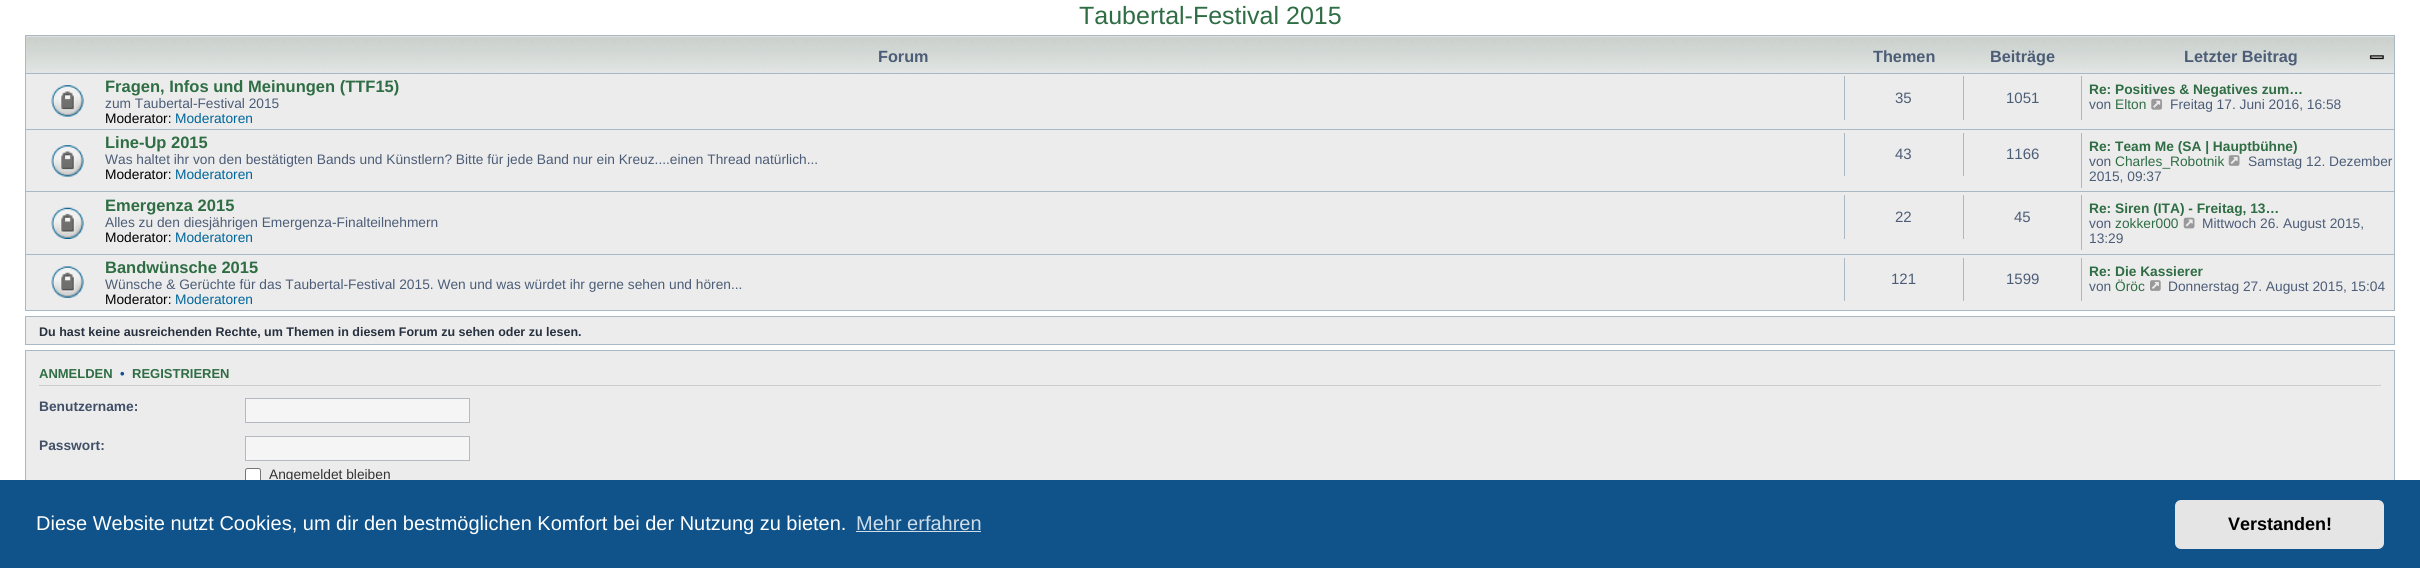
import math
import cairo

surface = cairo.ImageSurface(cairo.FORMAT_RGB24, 2420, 568)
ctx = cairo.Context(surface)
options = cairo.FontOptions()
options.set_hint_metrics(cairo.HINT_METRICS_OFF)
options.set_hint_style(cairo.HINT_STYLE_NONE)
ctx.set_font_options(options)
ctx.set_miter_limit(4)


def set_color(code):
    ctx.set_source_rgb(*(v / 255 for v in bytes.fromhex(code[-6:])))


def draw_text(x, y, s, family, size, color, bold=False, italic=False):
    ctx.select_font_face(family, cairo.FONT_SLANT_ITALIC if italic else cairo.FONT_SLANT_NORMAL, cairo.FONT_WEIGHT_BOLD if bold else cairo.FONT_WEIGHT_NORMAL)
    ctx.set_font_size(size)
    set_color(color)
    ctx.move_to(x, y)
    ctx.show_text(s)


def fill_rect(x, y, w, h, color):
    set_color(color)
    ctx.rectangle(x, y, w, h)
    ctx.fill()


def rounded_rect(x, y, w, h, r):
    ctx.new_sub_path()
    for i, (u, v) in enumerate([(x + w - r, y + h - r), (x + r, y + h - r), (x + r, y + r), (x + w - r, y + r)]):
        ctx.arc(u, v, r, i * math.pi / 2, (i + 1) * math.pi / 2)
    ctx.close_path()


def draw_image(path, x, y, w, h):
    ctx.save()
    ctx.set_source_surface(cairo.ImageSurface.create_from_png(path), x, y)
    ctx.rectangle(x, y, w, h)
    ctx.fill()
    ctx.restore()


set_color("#ffffff")
ctx.paint()
draw_text(1079, 24, "Taubertal-Festival 2015", "Liberation Sans", 25, "#2f6d44")
fill_rect(26, 36, 2368, 1, "#ececec")
draw_image("assets/img1.png", 26, 36, 2368, 37)
ctx.rectangle(25.5, 35.5, 2369, 275)
set_color("#a9b8c2")
ctx.set_line_width(1)
ctx.stroke()
draw_text(878, 62, "Forum", "Liberation Sans", 16.25, "#4c5d77", bold=True)
draw_text(1873, 62, "Themen", "Liberation Sans", 16.25, "#4c5d77", bold=True)
draw_text(1990, 62, "Beiträge", "Liberation Sans", 16.25, "#4c5d77", bold=True)
draw_text(2184, 62, "Letzter Beitrag", "Liberation Sans", 16.25, "#4c5d77", bold=True)
draw_image("assets/img2.png", 2369, 55, 15, 5)
fill_rect(26, 74, 2368, 236, "#ececec")
fill_rect(26, 73, 2368, 1, "#a9b8c2")
draw_image("assets/img3.png", 51, 85, 33, 32)
draw_text(105, 92, "Fragen, Infos und Meinungen (TTF15)", "Liberation Sans", 16.5, "#2f6d44", bold=True)
draw_text(105, 108, "zum Taubertal-Festival 2015", "Liberation Sans", 13.75, "#4c5d77")
draw_text(105, 123, "Moderator:", "Liberation Sans", 13.75, "#000000")
draw_text(175, 123, "Moderatoren", "Liberation Sans", 13.75, "#006699")
fill_rect(1844, 76, 1, 44, "#a9b8c2")
draw_text(1895, 103, "35", "Liberation Sans", 15, "#4c5d77")
fill_rect(1963, 76, 1, 44, "#a9b8c2")
draw_text(2006, 103, "1051", "Liberation Sans", 15, "#4c5d77")
fill_rect(2081, 76, 1, 44, "#a9b8c2")
draw_text(2089, 94, "Re: Positives & Negatives zum…", "Liberation Sans", 13.75, "#2f6d44", bold=True)
draw_text(2089, 109, "von", "Liberation Sans", 13.75, "#4c5d77")
draw_text(2115, 109, "Elton", "Liberation Sans", 13.75, "#2f6d44")
draw_image("assets/img4.png", 2151, 98, 11, 12)
draw_text(2170, 109, "Freitag 17. Juni 2016, 16:58", "Liberation Sans", 13.75, "#4c5d77")
fill_rect(26, 129, 2368, 1, "#a9b8c2")
draw_image("assets/img3.png", 51, 145, 33, 32)
draw_text(105, 148, "Line-Up 2015", "Liberation Sans", 16.5, "#2f6d44", bold=True)
draw_text(105, 164, "Was haltet ihr von den bestätigten Bands und Künstlern? Bitte für jede Band nur ein Kreuz....einen Thread natürlich...", "Liberation Sans", 13.75, "#4c5d77")
draw_text(105, 179, "Moderator:", "Liberation Sans", 13.75, "#000000")
draw_text(175, 179, "Moderatoren", "Liberation Sans", 13.75, "#006699")
fill_rect(1844, 133, 1, 43, "#a9b8c2")
draw_text(1895, 159, "43", "Liberation Sans", 15, "#4c5d77")
fill_rect(1963, 133, 1, 43, "#a9b8c2")
draw_text(2006, 159, "1166", "Liberation Sans", 15, "#4c5d77")
fill_rect(2081, 133, 1, 55, "#a9b8c2")
draw_text(2089, 151, "Re: Team Me (SA | Hauptbühne)", "Liberation Sans", 13.75, "#2f6d44", bold=True)
draw_text(2089, 166, "von", "Liberation Sans", 13.75, "#4c5d77")
draw_text(2115, 166, "Charles_Robotnik", "Liberation Sans", 13.75, "#2f6d44")
draw_image("assets/img5.png", 2228, 155, 12, 11)
draw_text(2248, 166, "Samstag 12. Dezember", "Liberation Sans", 13.75, "#4c5d77")
draw_text(2089, 181, "2015, 09:37", "Liberation Sans", 13.75, "#4c5d77")
fill_rect(26, 191, 2368, 1, "#a9b8c2")
draw_image("assets/img6.png", 51, 207, 33, 32)
draw_text(105, 211, "Emergenza 2015", "Liberation Sans", 16.5, "#2f6d44", bold=True)
draw_text(105, 227, "Alles zu den diesjährigen Emergenza-Finalteilnehmern", "Liberation Sans", 13.75, "#4c5d77")
draw_text(105, 242, "Moderator:", "Liberation Sans", 13.75, "#000000")
draw_text(175, 242, "Moderatoren", "Liberation Sans", 13.75, "#006699")
fill_rect(1844, 195, 1, 44, "#a9b8c2")
draw_text(1895, 222, "22", "Liberation Sans", 15, "#4c5d77")
fill_rect(1963, 195, 1, 44, "#a9b8c2")
draw_text(2014, 222, "45", "Liberation Sans", 15, "#4c5d77")
fill_rect(2081, 195, 1, 55, "#a9b8c2")
draw_text(2089, 213, "Re: Siren (ITA) - Freitag, 13…", "Liberation Sans", 13.75, "#2f6d44", bold=True)
draw_text(2089, 228, "von", "Liberation Sans", 13.75, "#4c5d77")
draw_text(2115, 228, "zokker000", "Liberation Sans", 13.75, "#2f6d44")
draw_image("assets/img7.png", 2183, 217, 12, 12)
draw_text(2202, 228, "Mittwoch 26. August 2015,", "Liberation Sans", 13.75, "#4c5d77")
draw_text(2089, 243, "13:29", "Liberation Sans", 13.75, "#4c5d77")
fill_rect(26, 254, 2368, 1, "#a9b8c2")
draw_image("assets/img8.png", 51, 266, 33, 32)
draw_text(105, 273, "Bandwünsche 2015", "Liberation Sans", 16.5, "#2f6d44", bold=True)
draw_text(105, 289, "Wünsche & Gerüchte für das Taubertal-Festival 2015. Wen und was würdet ihr gerne sehen und hören...", "Liberation Sans", 13.75, "#4c5d77")
draw_text(105, 304, "Moderator:", "Liberation Sans", 13.75, "#000000")
draw_text(175, 304, "Moderatoren", "Liberation Sans", 13.75, "#006699")
fill_rect(1844, 258, 1, 43, "#a9b8c2")
draw_text(1891, 284, "121", "Liberation Sans", 15, "#4c5d77")
fill_rect(1963, 258, 1, 43, "#a9b8c2")
draw_text(2006, 284, "1599", "Liberation Sans", 15, "#4c5d77")
fill_rect(2081, 258, 1, 43, "#a9b8c2")
draw_text(2089, 276, "Re: Die Kassierer", "Liberation Sans", 13.75, "#2f6d44", bold=True)
draw_text(2089, 291, "von", "Liberation Sans", 13.75, "#4c5d77")
draw_text(2115, 291, "Öröc", "Liberation Sans", 13.75, "#2f6d44")
draw_image("assets/img9.png", 2150, 280, 11, 11)
draw_text(2168, 291, "Donnerstag 27. August 2015, 15:04", "Liberation Sans", 13.75, "#4c5d77")
set_color("#ececec")
ctx.rectangle(25.5, 316.5, 2369, 28)
ctx.fill_preserve()
set_color("#a9b8c2")
ctx.stroke()
draw_text(39, 336, "Du hast keine ausreichenden Rechte, um Themen in diesem Forum zu sehen oder zu lesen.", "Liberation Sans", 12.5, "#28313f", bold=True)
fill_rect(26, 351, 2368, 129, "#ececec")
ctx.rectangle(25.5, 350.5, 2369, 212)
set_color("#a9b8c2")
ctx.stroke()
fill_rect(39, 385, 2342, 1, "#cccccc")
draw_text(39, 378, "ANMELDEN", "Liberation Sans", 13, "#2f6d44", bold=True)
draw_text(120, 378, "•", "Liberation Sans", 13, "#115098", bold=True)
draw_text(132, 378, "REGISTRIEREN", "Liberation Sans", 13, "#2f6d44", bold=True)
draw_text(39, 411, "Benutzername:", "Liberation Sans", 13.75, "#425067", bold=True)
set_color("#f5f5f5")
ctx.rectangle(245.5, 398.5, 224, 24)
ctx.fill_preserve()
set_color("#b4bac0")
ctx.stroke()
draw_text(39, 450, "Passwort:", "Liberation Sans", 13.75, "#425067", bold=True)
set_color("#f5f5f5")
ctx.rectangle(245.5, 436.5, 224, 24)
ctx.fill_preserve()
set_color("#b4bac0")
ctx.stroke()
set_color("#ffffff")
rounded_rect(245.5, 468.5, 15, 15, 2)
ctx.fill_preserve()
set_color("#767676")
ctx.stroke()
draw_text(269, 479, "Angemeldet bleiben", "Liberation Sans", 13.75, "#333333")
fill_rect(0, 480, 2420, 88, "#0f538a")
draw_text(36, 530, "Diese Website nutzt Cookies, um dir den bestmöglichen Komfort bei der Nutzung zu bieten.", "Liberation Sans", 20, "#ffffff")
draw_text(856, 530, "Mehr erfahren", "Liberation Sans", 20, "#cfdde8")
fill_rect(856, 531, 125, 1, "#cfdde8")
set_color("#e5e5e5")
rounded_rect(2175, 500, 209, 49, 6)
ctx.fill()
draw_text(2228, 530, "Verstanden!", "Liberation Sans", 18, "#000000", bold=True)
surface.write_to_png("output.png")
